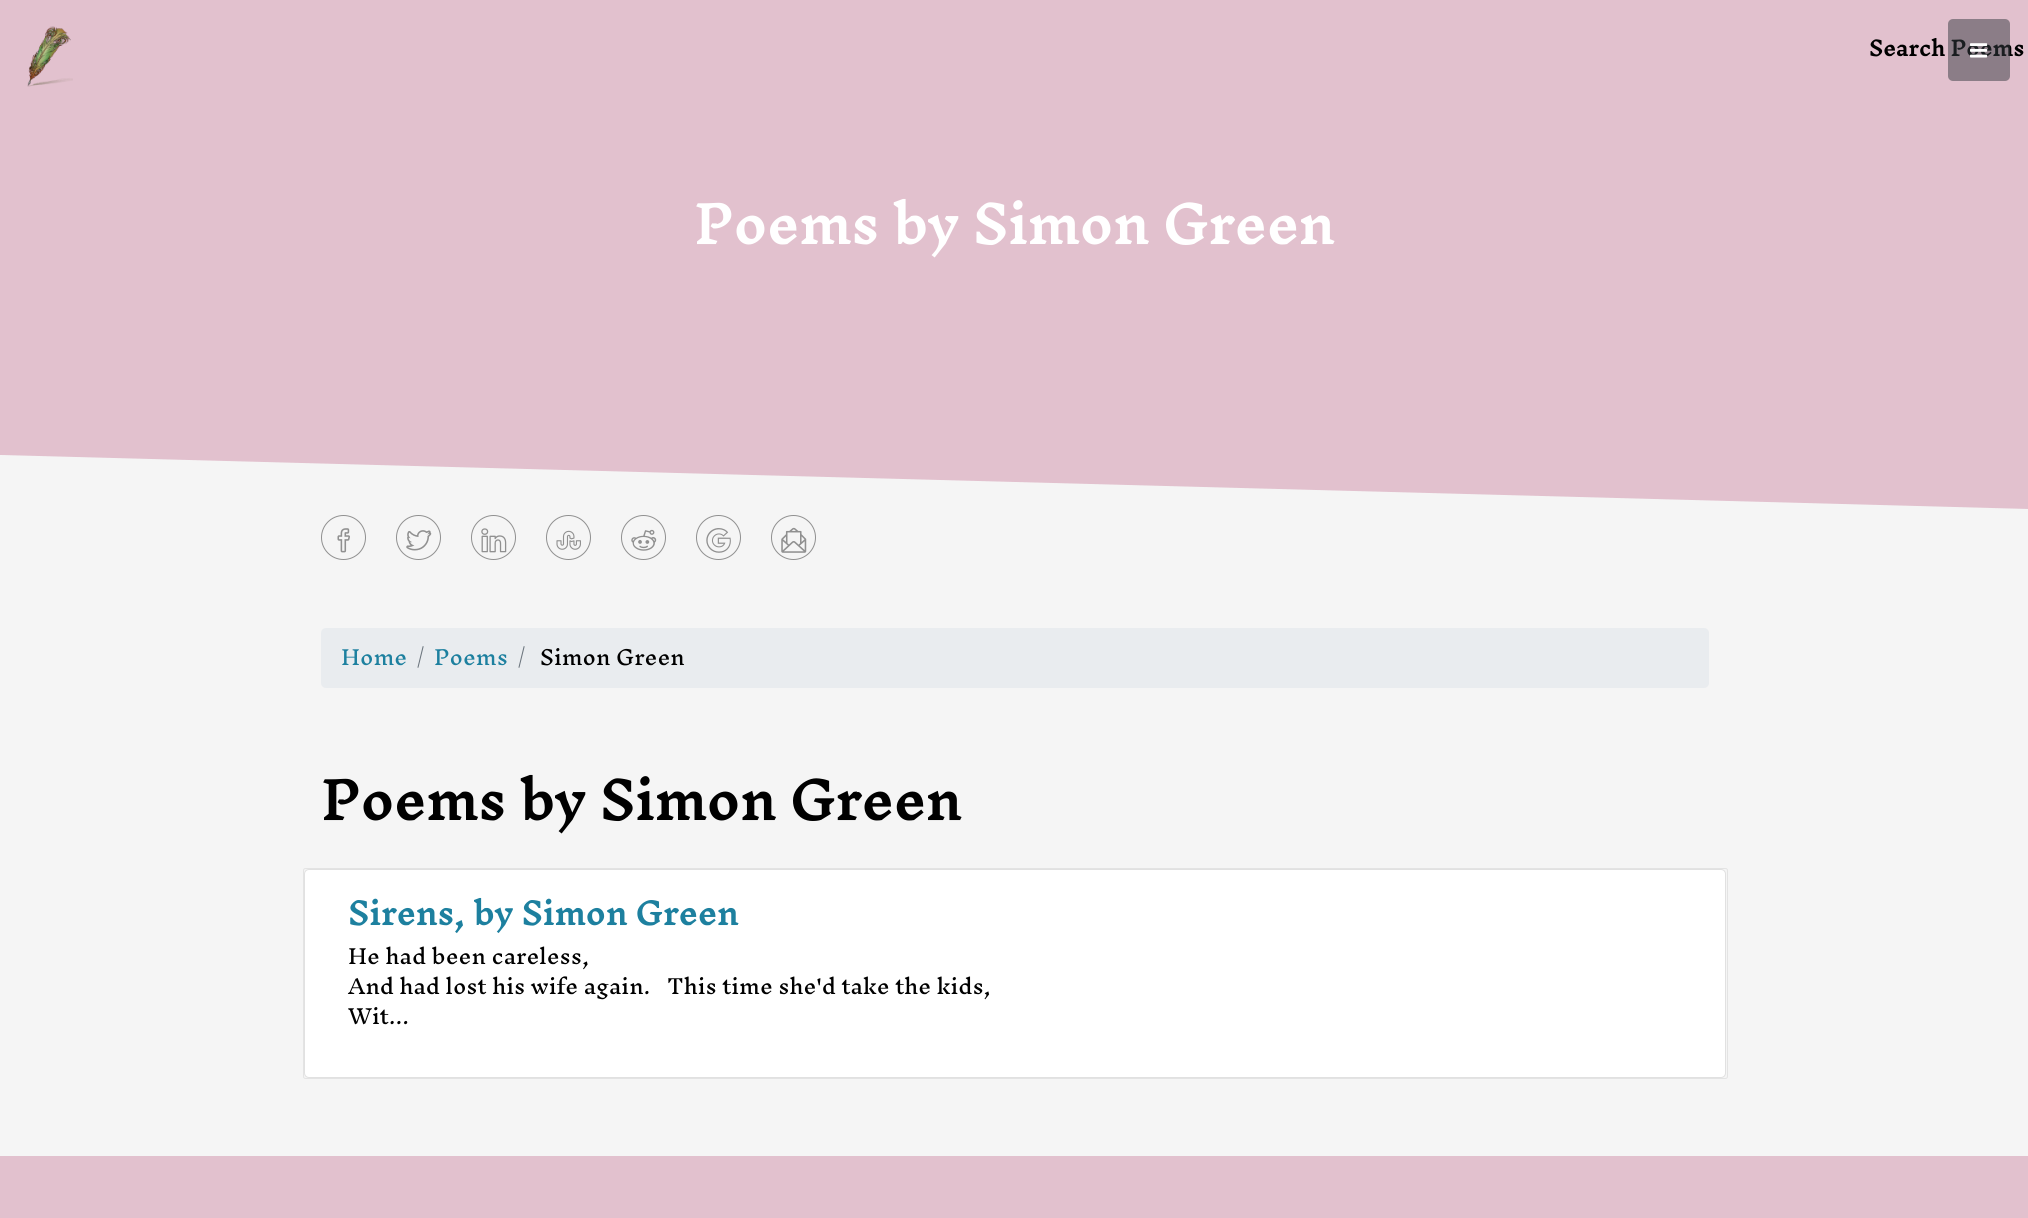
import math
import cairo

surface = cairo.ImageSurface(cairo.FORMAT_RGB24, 2028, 1218)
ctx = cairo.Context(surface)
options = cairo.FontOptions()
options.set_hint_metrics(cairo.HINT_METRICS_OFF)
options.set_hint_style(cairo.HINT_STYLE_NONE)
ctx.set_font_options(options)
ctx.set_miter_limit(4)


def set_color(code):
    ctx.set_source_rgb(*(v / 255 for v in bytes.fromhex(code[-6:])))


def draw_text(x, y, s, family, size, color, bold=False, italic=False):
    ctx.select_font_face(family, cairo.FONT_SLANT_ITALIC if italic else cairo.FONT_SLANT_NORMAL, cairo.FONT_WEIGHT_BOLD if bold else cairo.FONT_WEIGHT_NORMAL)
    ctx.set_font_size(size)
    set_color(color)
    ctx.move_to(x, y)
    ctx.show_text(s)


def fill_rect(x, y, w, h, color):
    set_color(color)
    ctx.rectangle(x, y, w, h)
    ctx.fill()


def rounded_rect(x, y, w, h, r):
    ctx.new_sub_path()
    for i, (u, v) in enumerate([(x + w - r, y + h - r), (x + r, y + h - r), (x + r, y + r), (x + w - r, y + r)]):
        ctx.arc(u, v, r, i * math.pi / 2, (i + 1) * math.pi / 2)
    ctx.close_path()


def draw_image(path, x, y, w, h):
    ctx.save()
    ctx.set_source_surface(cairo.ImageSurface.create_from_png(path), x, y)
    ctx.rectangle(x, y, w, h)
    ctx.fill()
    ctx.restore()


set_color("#f5f5f5")
ctx.paint()
fill_rect(0, 0, 2028, 387, "#e2c1ce")
draw_image("assets/img1.png", 27, 26, 46, 61)
draw_text(1869, 56, "Search Poems", "Inknut Antiqua", 20, "#000000", bold=True)
ctx.set_source_rgba(0.204, 0.227, 0.251, 0.5)
rounded_rect(1948, 19, 62, 62, 5)
ctx.fill()
draw_image("assets/img2.png", 1970, 43, 18, 15)
draw_text(694, 244, "Poems by Simon Green", "Inknut Antiqua", 50, "#ffffff", bold=True)
set_color("#e2c1ce")
ctx.new_path()
ctx.move_to(0, 334)
ctx.line_to(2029, 387)
ctx.line_to(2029, 509)
ctx.line_to(0, 455)
ctx.close_path()
ctx.fill()
ctx.arc(343.5, 537.5, 22, 0, 2 * math.pi)
set_color("#909090")
ctx.set_line_width(1)
ctx.stroke()
draw_image("assets/img3.png", 337, 528, 13, 25)
ctx.arc(418.5, 537.5, 22, 0, 2 * math.pi)
ctx.stroke()
draw_image("assets/img4.png", 406, 530, 26, 21)
ctx.arc(493.5, 537.5, 22, 0, 2 * math.pi)
ctx.stroke()
draw_image("assets/img5.png", 481, 528, 26, 25)
ctx.arc(568.5, 537.5, 22, 0, 2 * math.pi)
ctx.stroke()
draw_image("assets/img6.png", 556, 530, 25, 20)
ctx.arc(643.5, 537.5, 22, 0, 2 * math.pi)
ctx.stroke()
draw_image("assets/img7.png", 631, 529, 26, 22)
ctx.arc(718.5, 537.5, 22, 0, 2 * math.pi)
ctx.stroke()
draw_image("assets/img8.png", 706, 528, 25, 25)
ctx.arc(793.5, 537.5, 22, 0, 2 * math.pi)
ctx.stroke()
draw_image("assets/img9.png", 781, 527, 26, 26)
set_color("#e9ecef")
rounded_rect(321, 628, 1388, 60, 5)
ctx.fill()
draw_text(341, 665, "Home", "Inknut Antiqua", 20, "#1d809f")
draw_text(417, 665, "/", "Inknut Antiqua", 20, "#6c757d")
draw_text(434, 665, "Poems", "Inknut Antiqua", 20, "#1d809f")
draw_text(518, 665, "/", "Inknut Antiqua", 20, "#6c757d")
draw_text(540, 665, "Simon Green", "Inknut Antiqua", 20, "#000000")
draw_text(321, 820, "Poems by Simon Green", "Inknut Antiqua", 50, "#000000", bold=True)
rounded_rect(303.5, 868.5, 1424, 210, 2)
set_color("#e3e3e3")
ctx.stroke()
set_color("#ffffff")
rounded_rect(304, 869, 1422, 209, 5)
ctx.fill()
rounded_rect(304.5, 869.5, 1421, 208, 4.5)
ctx.set_source_rgba(0, 0, 0, 0.12)
ctx.stroke()
draw_text(348, 925, "Sirens, by Simon Green", "Inknut Antiqua", 30, "#1d809f", bold=True)
draw_text(348, 964, "He had been careless,", "Inknut Antiqua", 20, "#000000")
draw_text(348, 994, "And had lost his wife again.   This time she'd take the kids,", "Inknut Antiqua", 20, "#000000")
draw_text(348, 1024, "Wit...", "Inknut Antiqua", 20, "#000000")
fill_rect(0, 1156, 2028, 62, "#e2c1ce")
surface.write_to_png("output.png")
